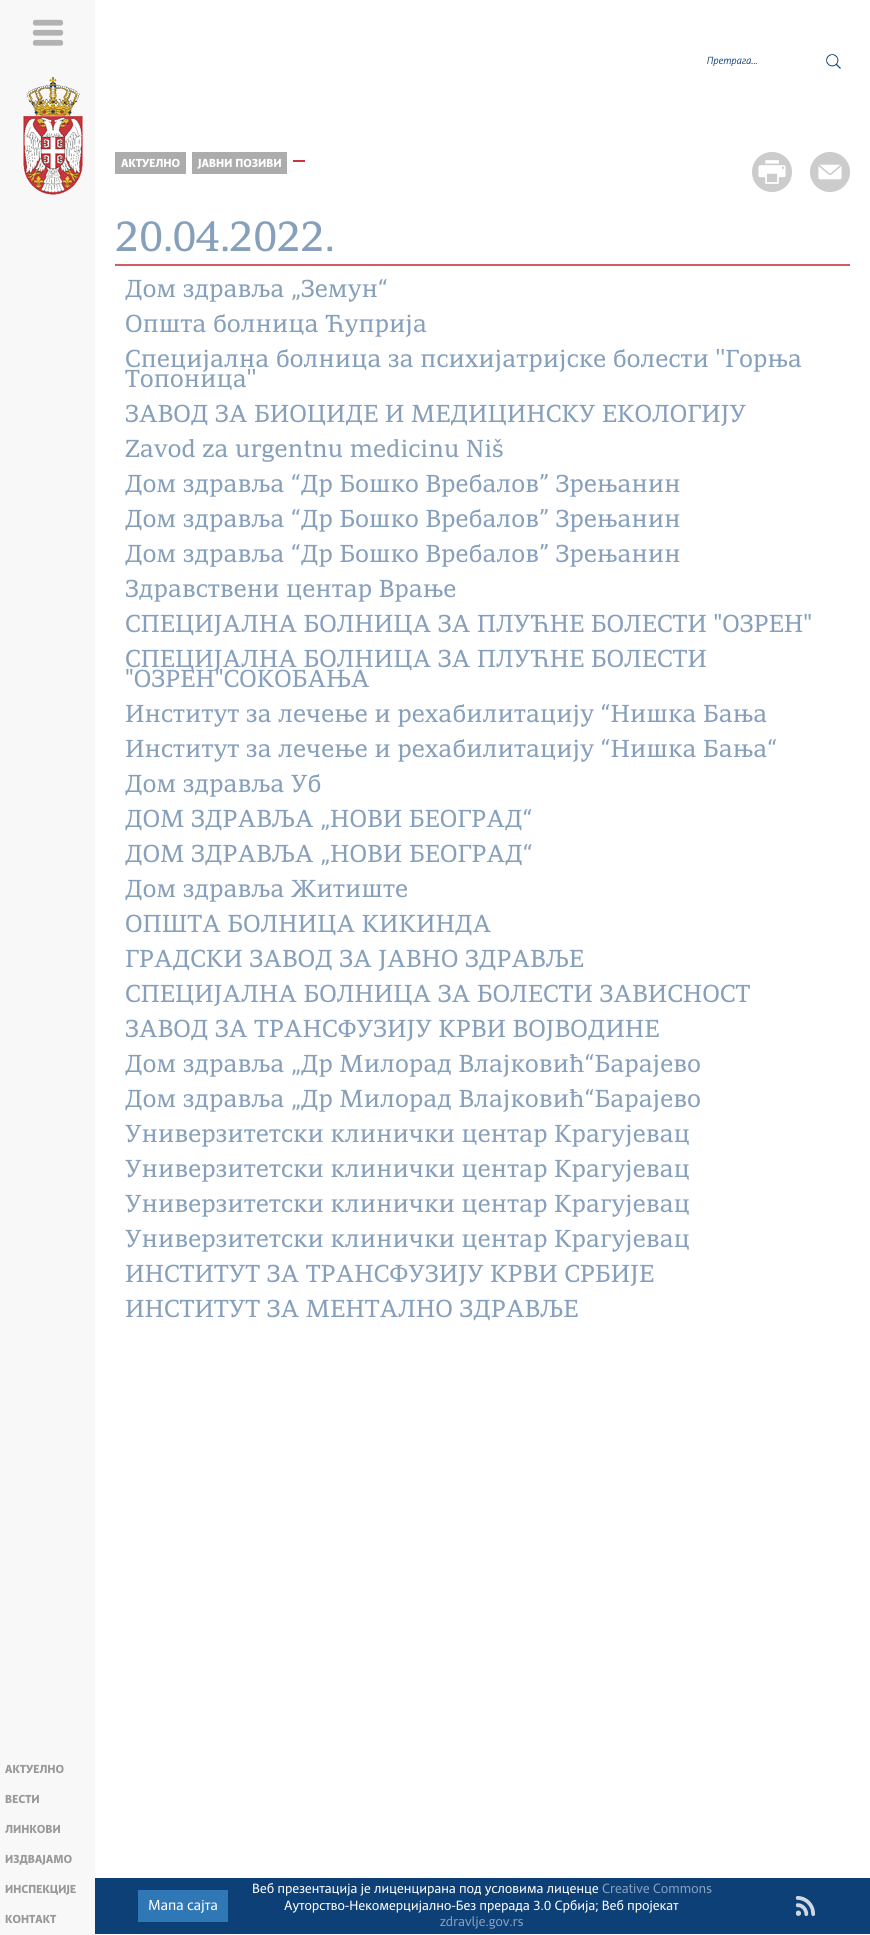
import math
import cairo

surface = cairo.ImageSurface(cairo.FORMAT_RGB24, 870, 1935)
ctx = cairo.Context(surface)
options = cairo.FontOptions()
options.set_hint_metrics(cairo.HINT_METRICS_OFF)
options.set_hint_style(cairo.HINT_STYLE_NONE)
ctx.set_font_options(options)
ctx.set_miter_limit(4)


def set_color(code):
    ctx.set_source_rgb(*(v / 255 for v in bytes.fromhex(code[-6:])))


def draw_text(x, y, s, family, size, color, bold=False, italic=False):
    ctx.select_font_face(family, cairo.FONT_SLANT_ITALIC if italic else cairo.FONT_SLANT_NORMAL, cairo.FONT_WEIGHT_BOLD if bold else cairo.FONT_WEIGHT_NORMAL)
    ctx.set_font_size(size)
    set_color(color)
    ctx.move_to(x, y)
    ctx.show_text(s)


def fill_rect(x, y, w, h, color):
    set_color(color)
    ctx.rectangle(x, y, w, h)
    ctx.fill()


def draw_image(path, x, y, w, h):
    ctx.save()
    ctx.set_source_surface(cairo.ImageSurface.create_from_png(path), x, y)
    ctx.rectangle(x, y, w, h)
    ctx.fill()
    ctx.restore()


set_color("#ffffff")
ctx.paint()
fill_rect(0, 0, 95, 1935, "#f8f8f8")
draw_image("assets/img1.png", 32, 19, 32, 27)
draw_image("assets/img2.png", 23, 77, 60, 118)
draw_image("assets/img3.png", 5, 1764, 59, 10)
draw_image("assets/img4.png", 5, 1794, 34, 10)
draw_image("assets/img5.png", 5, 1824, 55, 10)
draw_image("assets/img6.png", 5, 1854, 67, 11)
draw_image("assets/img7.png", 5, 1884, 71, 11)
draw_image("assets/img8.png", 5, 1914, 52, 10)
draw_text(707, 64, "Претрага...", "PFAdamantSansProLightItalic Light", 10, "#0d4077", italic=True)
draw_image("assets/img9.png", 826, 54, 15, 15)
fill_rect(115, 152, 71, 22, "#acacac")
draw_image("assets/img10.png", 121, 158, 59, 10)
fill_rect(192, 152, 95, 22, "#acacac")
draw_image("assets/img11.png", 197, 158, 84, 11)
fill_rect(293, 160, 12, 2, "#c7363d")
draw_image("assets/img12.png", 752, 152, 40, 40)
draw_image("assets/img13.png", 810, 152, 40, 40)
fill_rect(115, 264, 735, 2, "#d25c62")
draw_image("assets/img14.png", 116, 221, 217, 31)
draw_image("assets/img15.png", 125, 279, 262, 23)
draw_image("assets/img16.png", 126, 313, 301, 24)
draw_image("assets/img17.png", 126, 348, 676, 24)
draw_image("assets/img18.png", 125, 368, 130, 22)
draw_image("assets/img19.png", 126, 404, 620, 22)
draw_image("assets/img20.png", 125, 438, 378, 24)
draw_image("assets/img21.png", 125, 473, 555, 24)
draw_image("assets/img21.png", 125, 508, 555, 24)
draw_image("assets/img21.png", 125, 543, 555, 24)
draw_image("assets/img22.png", 126, 579, 330, 23)
draw_image("assets/img23.png", 126, 613, 685, 23)
draw_image("assets/img24.png", 126, 649, 580, 22)
draw_image("assets/img25.png", 126, 668, 244, 20)
draw_image("assets/img26.png", 126, 703, 641, 24)
draw_image("assets/img27.png", 126, 738, 650, 24)
draw_image("assets/img28.png", 125, 773, 196, 24)
draw_image("assets/img29.png", 125, 809, 407, 22)
draw_image("assets/img30.png", 125, 844, 277, 22)
draw_image("assets/img31.png", 410, 844, 122, 22)
draw_image("assets/img32.png", 125, 879, 282, 23)
draw_image("assets/img33.png", 126, 914, 365, 22)
draw_image("assets/img34.png", 126, 949, 458, 22)
draw_image("assets/img35.png", 126, 984, 624, 22)
draw_image("assets/img36.png", 126, 1019, 533, 22)
draw_image("assets/img37.png", 125, 1054, 575, 23)
draw_image("assets/img37.png", 125, 1089, 575, 23)
draw_image("assets/img38.png", 125, 1124, 564, 23)
draw_image("assets/img38.png", 125, 1159, 564, 23)
draw_image("assets/img38.png", 125, 1194, 564, 23)
draw_image("assets/img38.png", 125, 1229, 564, 23)
draw_image("assets/img39.png", 126, 1264, 528, 22)
draw_image("assets/img40.png", 126, 1299, 452, 22)
fill_rect(95, 1878, 775, 56, "#0d4077")
fill_rect(138, 1890, 90, 32, "#3077b5")
draw_image("assets/img41.png", 149, 1899, 68, 14)
draw_image("assets/img42.png", 253, 1883, 346, 13)
draw_image("assets/img43.png", 602, 1883, 110, 11)
draw_image("assets/img44.png", 284, 1900, 395, 13)
draw_image("assets/img45.png", 440, 1916, 83, 13)
draw_image("assets/img46.png", 795, 1896, 20, 20)
surface.write_to_png("output.png")
